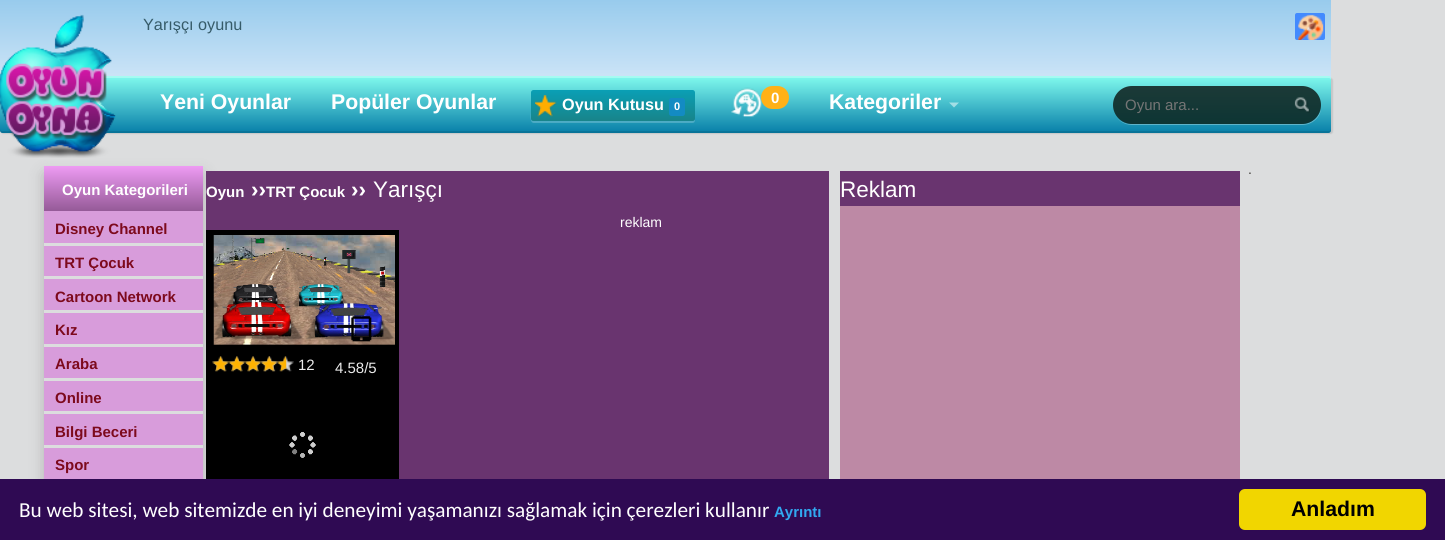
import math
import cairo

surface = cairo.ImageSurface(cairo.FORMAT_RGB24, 1445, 540)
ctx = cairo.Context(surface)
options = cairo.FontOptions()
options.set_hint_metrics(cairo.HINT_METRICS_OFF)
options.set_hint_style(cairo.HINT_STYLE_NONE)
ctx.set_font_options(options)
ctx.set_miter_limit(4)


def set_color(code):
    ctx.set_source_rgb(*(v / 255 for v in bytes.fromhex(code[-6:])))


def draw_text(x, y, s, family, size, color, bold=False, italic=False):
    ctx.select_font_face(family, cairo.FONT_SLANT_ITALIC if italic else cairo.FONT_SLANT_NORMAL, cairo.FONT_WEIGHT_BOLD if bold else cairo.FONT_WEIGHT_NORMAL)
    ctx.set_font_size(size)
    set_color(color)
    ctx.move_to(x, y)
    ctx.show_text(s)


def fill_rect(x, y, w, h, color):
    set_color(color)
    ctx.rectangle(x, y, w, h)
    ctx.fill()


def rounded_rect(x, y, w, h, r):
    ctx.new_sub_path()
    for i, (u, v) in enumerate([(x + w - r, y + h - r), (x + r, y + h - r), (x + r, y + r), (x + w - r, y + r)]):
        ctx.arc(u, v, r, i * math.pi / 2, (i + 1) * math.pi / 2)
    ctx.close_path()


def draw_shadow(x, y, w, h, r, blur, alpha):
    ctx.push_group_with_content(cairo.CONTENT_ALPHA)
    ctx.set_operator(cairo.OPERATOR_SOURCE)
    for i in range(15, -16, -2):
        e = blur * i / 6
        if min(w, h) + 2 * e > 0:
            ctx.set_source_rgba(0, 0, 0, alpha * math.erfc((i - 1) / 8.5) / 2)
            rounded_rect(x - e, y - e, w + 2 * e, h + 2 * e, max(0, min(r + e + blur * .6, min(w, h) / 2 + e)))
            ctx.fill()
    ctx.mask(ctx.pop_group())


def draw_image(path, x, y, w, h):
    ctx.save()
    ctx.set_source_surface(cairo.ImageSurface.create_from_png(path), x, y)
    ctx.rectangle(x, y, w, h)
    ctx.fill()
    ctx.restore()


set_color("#dcddde")
ctx.paint()
gradient = cairo.LinearGradient(666, 0, 666, 81)
gradient.add_color_stop_rgba(0, 0.596, 0.796, 0.929, 1)
gradient.add_color_stop_rgba(1, 0.808, 0.898, 0.969, 1)
ctx.set_source(gradient)
ctx.rectangle(0, 0, 1331, 79)
ctx.fill()
draw_text(143, 30, "Yarışçı oyunu", "Liberation Sans", 16.25, "#365b69")
set_color("#438afe")
rounded_rect(1295, 13, 30, 27, 2)
ctx.fill()
draw_image("assets/img1.png", 1298, 14, 26, 26)
set_color("#000000")
draw_shadow(1, 78, 1332, 56, 2.5, 0.5, 0.1)
gradient = cairo.LinearGradient(666, 76, 666, 133)
gradient.add_color_stop_rgba(0, 0.506, 0.984, 0.933, 1)
gradient.add_color_stop_rgba(1, 0.027, 0.494, 0.659, 1)
ctx.set_source(gradient)
rounded_rect(0, 76, 1331, 57, 2.5)
ctx.fill()
ctx.set_source_rgba(0, 0, 0, 0.1)
ctx.new_path()
ctx.move_to(0, 129)
ctx.line_to(0, 130)
ctx.curve_to(0, 132, 1, 133, 2, 133)
ctx.line_to(1328, 133)
ctx.curve_to(1330, 133, 1331, 132, 1331, 130)
ctx.line_to(1331, 129)
ctx.curve_to(1331, 130, 1330, 131, 1329, 131)
ctx.line_to(2, 131)
ctx.curve_to(1, 131, 0, 130, 0, 129)
ctx.close_path()
ctx.fill()
ctx.set_source_rgba(1, 1, 1, 0.3)
ctx.new_path()
ctx.move_to(2, 78)
ctx.line_to(1329, 78)
ctx.curve_to(1330, 78, 1331, 79, 1331, 80)
ctx.line_to(1331, 78)
ctx.curve_to(1331, 77, 1330, 76, 1328, 76)
ctx.line_to(2, 76)
ctx.curve_to(1, 76, 0, 77, 0, 78)
ctx.line_to(0, 80)
ctx.curve_to(0, 79, 1, 78, 2, 78)
ctx.close_path()
ctx.fill()
set_color("#000000")
draw_shadow(44, 174, 159, 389, 0, 7.5, 0.18)
draw_image("assets/img2.png", 0, 14, 116, 144)
draw_text(160, 109, "Yeni Oyunlar", "Liberation Sans", 21.25, "#ffffff", bold=True)
draw_text(331, 109, "Popüler Oyunlar", "Liberation Sans", 21.25, "#ffffff", bold=True)
ctx.set_source_rgba(1, 1, 1, 0.2)
ctx.new_path()
ctx.move_to(531, 92)
ctx.line_to(531, 112)
ctx.curve_to(531, 114, 529, 123, 534, 123)
ctx.line_to(692, 123)
ctx.curve_to(695, 123, 695, 121, 695, 119)
ctx.curve_to(695, 120, 694, 121, 692, 121)
ctx.line_to(534, 121)
ctx.curve_to(532, 121, 531, 120, 531, 119)
ctx.close_path()
ctx.fill()
gradient = cairo.LinearGradient(613, 90, 613, 121)
gradient.add_color_stop_rgba(0, 0.039, 0.624, 0.71, 1)
gradient.add_color_stop_rgba(1, 0.094, 0.518, 0.541, 1)
ctx.set_source(gradient)
rounded_rect(531, 90, 164, 31, 2.5)
ctx.fill()
draw_image("assets/img3.png", 535, 95, 22, 22)
draw_text(562, 110, "Oyun Kutusu", "Liberation Sans", 16.25, "#ffffff", bold=True)
set_color("#138bc3")
rounded_rect(669, 98, 16, 18, 2.5)
ctx.fill()
draw_text(674, 110, "0", "Liberation Sans", 11, "#ffffff", bold=True)
draw_image("assets/img4.png", 731, 87, 31, 30)
set_color("#ffb117")
rounded_rect(761, 86, 28, 23, 11.5)
ctx.fill()
draw_text(771, 103, "0", "Liberation Sans", 15, "#ffffff", bold=True)
draw_text(829, 109, "Kategoriler", "Liberation Sans", 21.25, "#ffffff", bold=True)
ctx.set_source_rgba(1, 1, 1, 0.5)
ctx.new_path()
ctx.move_to(949, 102.5)
ctx.line_to(959, 102.5)
ctx.line_to(954, 107.5)
ctx.close_path()
ctx.fill()
ctx.set_source_rgba(1, 1, 1, 0.3)
ctx.new_path()
ctx.move_to(1114, 112)
ctx.curve_to(1116, 119, 1123, 125, 1132, 125)
ctx.line_to(1302, 125)
ctx.curve_to(1312, 125, 1320, 118, 1321, 109)
ctx.curve_to(1319, 117, 1312, 124, 1302, 124)
ctx.line_to(1131, 124)
ctx.curve_to(1123, 124, 1116, 119, 1114, 112)
ctx.close_path()
ctx.fill()
gradient = cairo.LinearGradient(1217, 86, 1217, 124)
gradient.add_color_stop_rgba(0, 0.11, 0.227, 0.216, 1)
gradient.add_color_stop_rgba(1, 0.051, 0.208, 0.204, 1)
ctx.set_source(gradient)
rounded_rect(1113, 86, 208, 38, 19)
ctx.fill()
draw_text(1125, 110, "Oyun ara...", "Liberation Sans", 15, "#757575")
draw_image("assets/img5.png", 1294, 97, 16, 16)
fill_rect(44, 211, 159, 268, "#d89cdb")
gradient = cairo.LinearGradient(123, 166, 123, 211)
gradient.add_color_stop_rgba(0, 0.933, 0.608, 0.953, 1)
gradient.add_color_stop_rgba(1, 0.584, 0.353, 0.596, 1)
ctx.set_source(gradient)
ctx.rectangle(44, 166, 159, 45)
ctx.fill()
draw_text(62, 195, "Oyun Kategorileri", "Liberation Sans", 15, "#ffffff", bold=True)
fill_rect(44, 243, 159, 3, "#dcddde")
draw_text(55, 234, "Disney Channel", "Liberation Sans", 15, "#7d0a1d", bold=True)
fill_rect(44, 276, 159, 3, "#dcddde")
draw_text(55, 268, "TRT Çocuk", "Liberation Sans", 15, "#7d0a1d", bold=True)
fill_rect(44, 310, 159, 3, "#dcddde")
draw_text(55, 302, "Cartoon Network", "Liberation Sans", 15, "#7d0a1d", bold=True)
fill_rect(44, 344, 159, 3, "#dcddde")
draw_text(55, 335, "Kız", "Liberation Sans", 15, "#7d0a1d", bold=True)
fill_rect(44, 378, 159, 3, "#dcddde")
draw_text(55, 369, "Araba", "Liberation Sans", 15, "#7d0a1d", bold=True)
fill_rect(44, 411, 159, 3, "#dcddde")
draw_text(55, 403, "Online", "Liberation Sans", 15, "#7d0a1d", bold=True)
fill_rect(44, 445, 159, 3, "#dcddde")
draw_text(55, 437, "Bilgi Beceri", "Liberation Sans", 15, "#7d0a1d", bold=True)
draw_text(55, 470, "Spor", "Liberation Sans", 15, "#7d0a1d", bold=True)
fill_rect(206, 171, 623, 308, "#69346f")
draw_text(206, 197, "Oyun", "Liberation Sans", 15, "#ffffff", bold=True)
draw_text(251, 197, "››", "Liberation Sans", 22.5, "#ffffff", bold=True)
draw_text(266, 197, "TRT Çocuk", "Liberation Sans", 15, "#ffffff", bold=True)
draw_text(351, 197, "››", "Liberation Sans", 22.5, "#ffffff", bold=True)
draw_text(373, 197, "Yarışçı", "Liberation Sans", 22.5, "#ffffff")
draw_text(620, 227, "reklam", "Liberation Sans", 14, "#ffffff")
fill_rect(206, 230, 193, 249, "#000000")
draw_image("assets/img6.png", 213, 235, 182, 110)
draw_image("assets/img7.png", 351, 316, 21, 26)
draw_text(298, 370, "12", "Liberation Sans", 15, "#ebebeb")
draw_image("assets/img8.png", 212, 356, 82, 16)
draw_image("assets/img9.png", 212, 356, 75, 16)
draw_text(335, 373, "4.58/5", "Liberation Sans", 15, "#ebebeb")
draw_image("assets/img10.png", 289, 432, 27, 26)
fill_rect(840, 206, 400, 273, "#bd89a5")
draw_text(1248, 174, ".", "Liberation Sans", 14, "#403e3a")
fill_rect(840, 171, 400, 35, "#69346f")
draw_text(840, 197, "Reklam", "Liberation Sans", 22.5, "#ffffff")
fill_rect(0, 479, 1445, 61, "#2f0a53")
draw_text(19, 517, "Bu web sitesi, web sitemizde en iyi deneyimi yaşamanızı sağlamak için çerezleri kullanır", "Carlito", 21.25, "#ffffff")
draw_text(774, 517, "Ayrıntı", "Liberation Sans", 15, "#31a8f0", bold=True)
set_color("#f1d600")
rounded_rect(1239, 489, 187, 41, 6)
ctx.fill()
draw_text(1291, 516, "Anladım", "Liberation Sans", 21.25, "#000000", bold=True)
surface.write_to_png("output.png")
